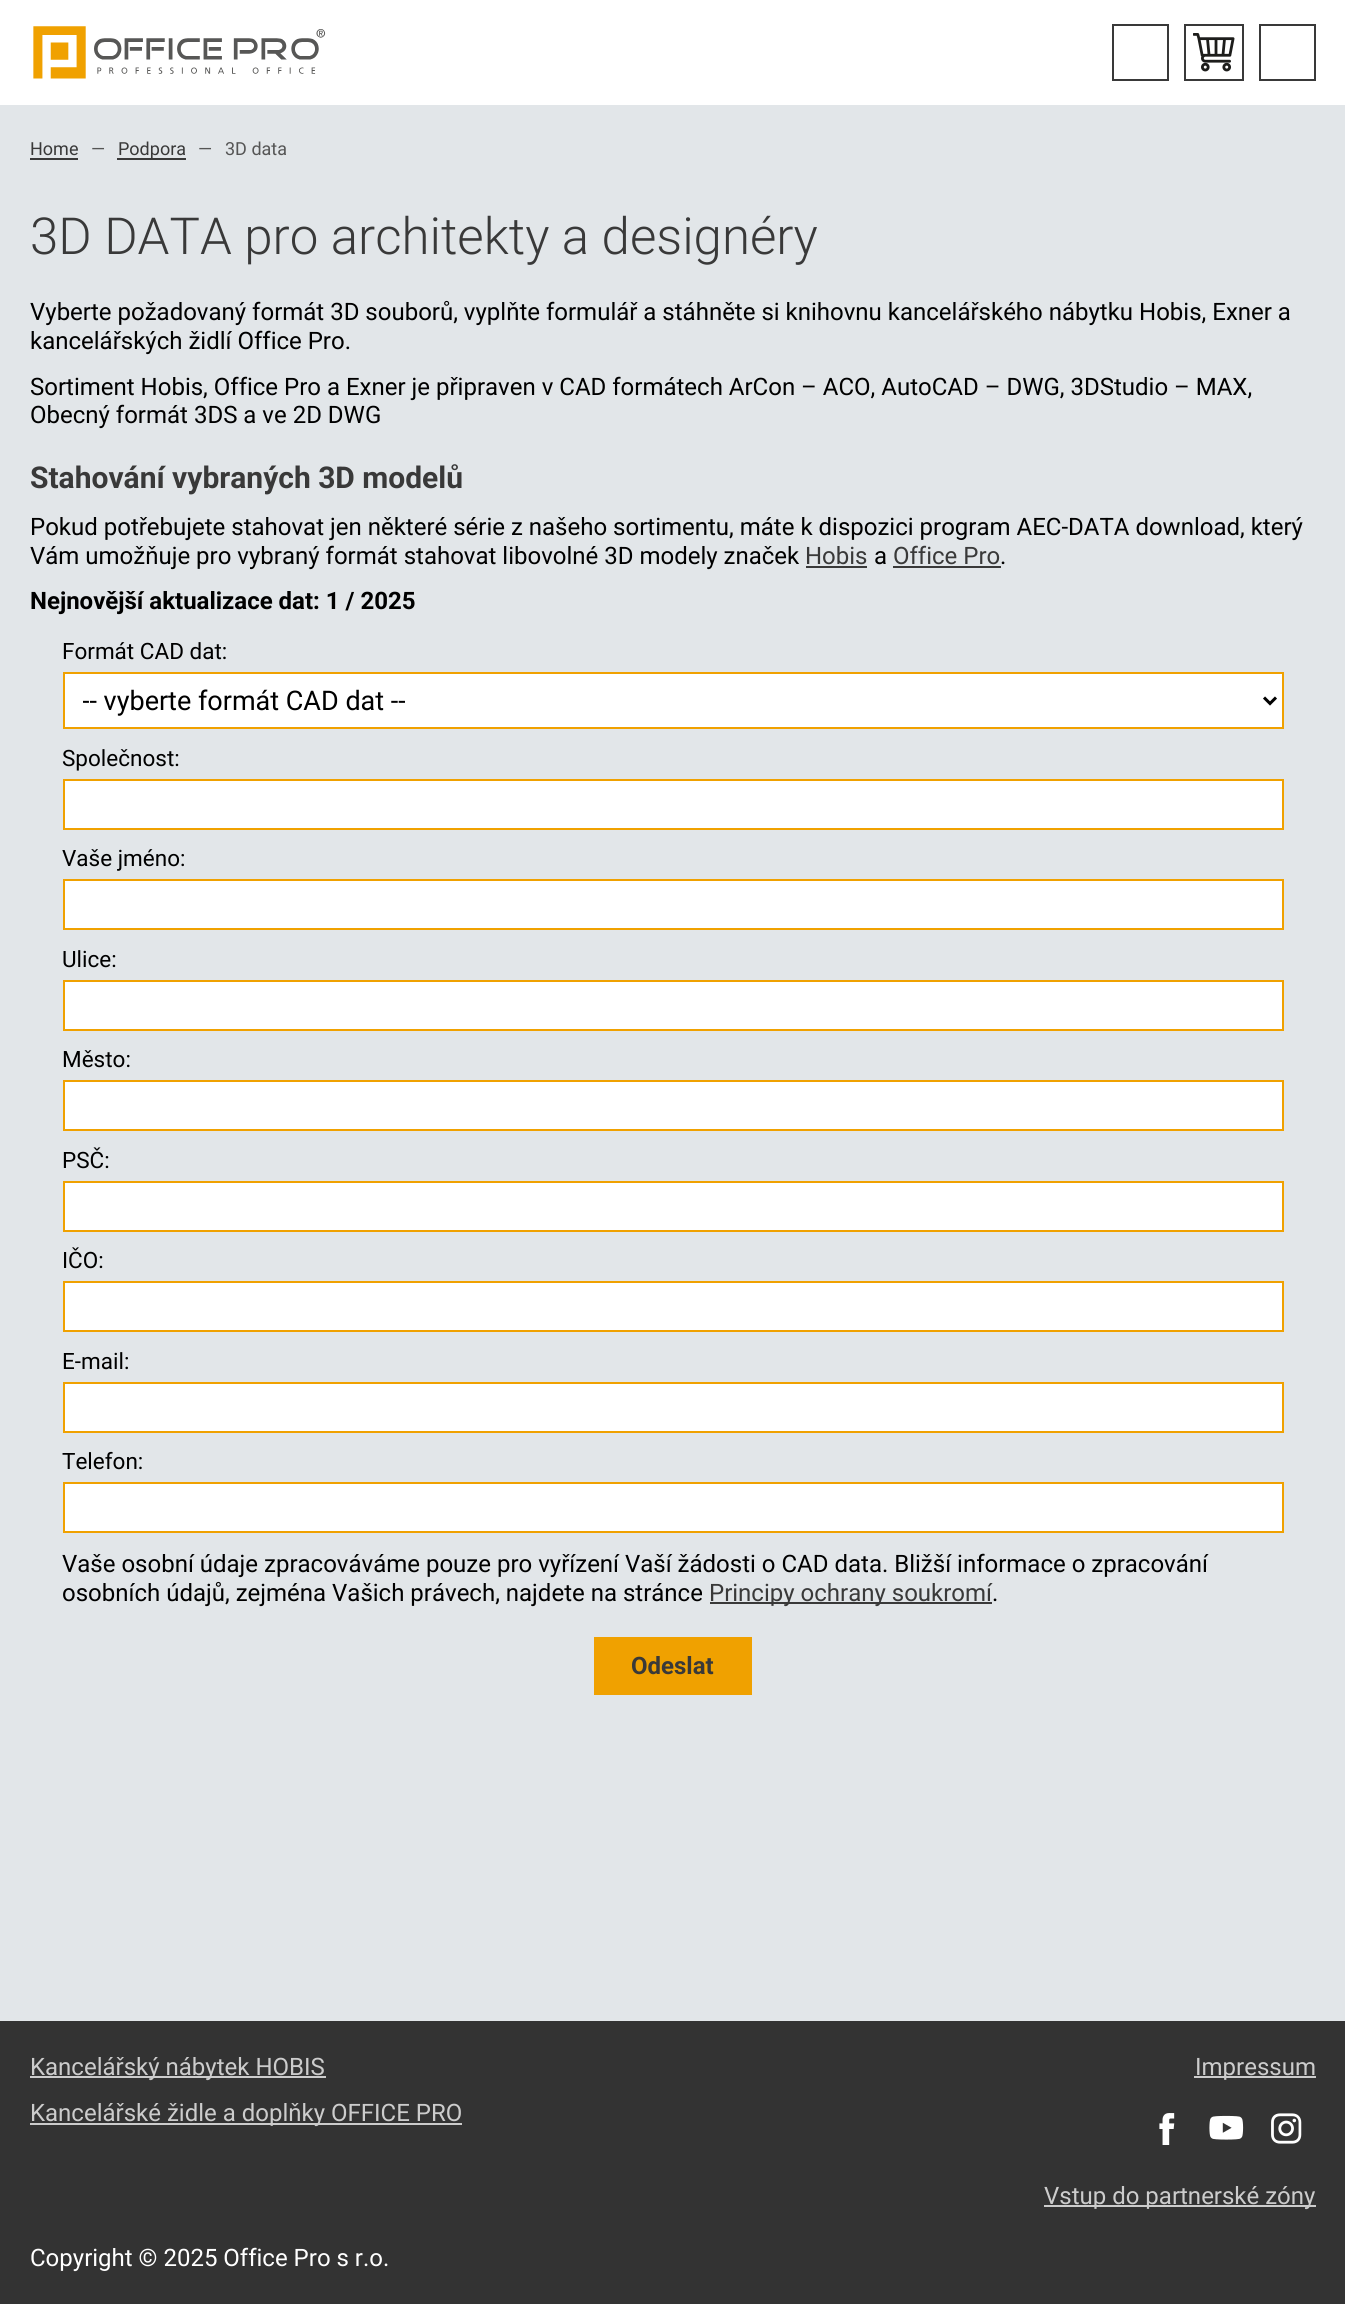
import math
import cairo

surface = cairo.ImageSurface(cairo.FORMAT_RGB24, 1345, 2304)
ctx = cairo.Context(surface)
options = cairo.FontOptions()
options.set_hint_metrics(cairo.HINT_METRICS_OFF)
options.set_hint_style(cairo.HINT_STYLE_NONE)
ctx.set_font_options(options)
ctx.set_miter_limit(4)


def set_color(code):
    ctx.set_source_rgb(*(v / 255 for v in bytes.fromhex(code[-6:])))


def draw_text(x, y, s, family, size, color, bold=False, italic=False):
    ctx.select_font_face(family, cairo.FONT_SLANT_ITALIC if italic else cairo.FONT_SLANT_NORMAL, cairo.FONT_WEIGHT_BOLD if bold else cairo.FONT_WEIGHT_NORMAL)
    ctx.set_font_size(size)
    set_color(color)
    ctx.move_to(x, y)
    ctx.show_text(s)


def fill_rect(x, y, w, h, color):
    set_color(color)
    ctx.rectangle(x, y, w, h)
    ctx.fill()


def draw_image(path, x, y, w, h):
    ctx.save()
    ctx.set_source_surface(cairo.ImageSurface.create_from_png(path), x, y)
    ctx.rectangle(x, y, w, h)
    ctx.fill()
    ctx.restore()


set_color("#e2e6e9")
ctx.paint()
fill_rect(0, 0, 1345, 105, "#ffffff")
draw_image("assets/img1.png", 33, 26, 293, 53)
ctx.rectangle(1113, 25, 55, 55)
set_color("#393939")
ctx.stroke()
draw_image("assets/img2.png", 1193, 33, 42, 39)
ctx.rectangle(1185, 25, 58, 55)
ctx.stroke()
ctx.rectangle(1260, 25, 55, 55)
ctx.stroke()
draw_text(30, 155, "Home", "Roboto", 18, "#393939")
fill_rect(30, 158, 48, 2, "#393939")
draw_text(91, 155, "—", "Roboto", 18, "#555555")
fill_rect(117, 158, 69, 2, "#393939")
draw_text(118, 155, "Podpora", "Roboto", 18, "#393939")
draw_text(198, 155, "—", "Roboto", 18, "#555555")
draw_text(225, 155, "3D data", "Roboto", 18, "#555555")
draw_text(30, 254, "3D DATA pro architekty a designéry", "Roboto Light", 51, "#393939")
draw_text(30, 320, "Vyberte požadovaný formát 3D souborů, vyplňte formulář a stáhněte si knihovnu kancelářského nábytku Hobis, Exner a", "Roboto", 24, "#000000")
draw_text(30, 349, "kancelářských židlí Office Pro.", "Roboto", 24, "#000000")
draw_text(30, 395, "Sortiment Hobis, Office Pro a Exner je připraven v CAD formátech ArCon – ACO, AutoCAD – DWG, 3DStudio – MAX,", "Roboto", 24, "#000000")
draw_text(30, 423, "Obecný formát 3DS a ve 2D DWG", "Roboto", 24, "#000000")
draw_text(30, 488, "Stahování vybraných 3D modelů", "Roboto", 30, "#393939", bold=True)
draw_text(30, 535, "Pokud potřebujete stahovat jen některé série z našeho sortimentu, máte k dispozici program AEC-DATA download, který", "Roboto", 24, "#000000")
draw_text(30, 564, "Vám umožňuje pro vybraný formát stahovat libovolné 3D modely značek", "Roboto", 24, "#000000")
draw_text(805, 564, "Hobis", "Roboto", 24, "#393939")
fill_rect(806, 566, 61, 2, "#393939")
draw_text(874, 564, "a", "Roboto", 24, "#000000")
draw_text(893, 564, "Office Pro", "Roboto", 24, "#393939")
fill_rect(893, 566, 108, 2, "#393939")
draw_text(1000, 564, ".", "Roboto", 24, "#000000")
draw_text(30, 609, "Nejnovější aktualizace dat: 1 / 2025", "Roboto", 24, "#000000", bold=True)
draw_text(62, 659, "Formát CAD dat:", "Roboto", 22.5, "#000000")
set_color("#ffffff")
ctx.rectangle(64, 673, 1219, 55)
ctx.fill_preserve()
set_color("#f0a100")
ctx.stroke()
ctx.new_path()
ctx.move_to(1264, 697.5)
ctx.line_to(1270, 703.5)
ctx.line_to(1276, 697.5)
set_color("#000000")
ctx.set_line_width(3)
ctx.stroke()
ctx.save()
ctx.rectangle(83, 683, 1164, 34)
ctx.clip()
draw_text(82, 710, "-- vyberte formát CAD dat --", "Roboto", 27, "#000000")
ctx.restore()
draw_text(62, 766, "Společnost:", "Roboto", 22.5, "#000000")
set_color("#ffffff")
ctx.rectangle(64, 780, 1219, 49)
ctx.fill_preserve()
set_color("#f0a100")
ctx.set_line_width(2)
ctx.stroke()
draw_text(62, 866, "Vaše jméno:", "Roboto", 22.5, "#000000")
set_color("#ffffff")
ctx.rectangle(64, 880, 1219, 49)
ctx.fill_preserve()
set_color("#f0a100")
ctx.stroke()
draw_text(62, 967, "Ulice:", "Roboto", 22.5, "#000000")
set_color("#ffffff")
ctx.rectangle(64, 981, 1219, 49)
ctx.fill_preserve()
set_color("#f0a100")
ctx.stroke()
draw_text(62, 1067, "Město:", "Roboto", 22.5, "#000000")
set_color("#ffffff")
ctx.rectangle(64, 1081, 1219, 49)
ctx.fill_preserve()
set_color("#f0a100")
ctx.stroke()
draw_text(62, 1168, "PSČ:", "Roboto", 22.5, "#000000")
set_color("#ffffff")
ctx.rectangle(64, 1182, 1219, 49)
ctx.fill_preserve()
set_color("#f0a100")
ctx.stroke()
draw_text(62, 1268, "IČO:", "Roboto", 22.5, "#000000")
set_color("#ffffff")
ctx.rectangle(64, 1282, 1219, 49)
ctx.fill_preserve()
set_color("#f0a100")
ctx.stroke()
draw_text(62, 1369, "E-mail:", "Roboto", 22.5, "#000000")
set_color("#ffffff")
ctx.rectangle(64, 1383, 1219, 49)
ctx.fill_preserve()
set_color("#f0a100")
ctx.stroke()
draw_text(62, 1469, "Telefon:", "Roboto", 22.5, "#000000")
set_color("#ffffff")
ctx.rectangle(64, 1483, 1219, 49)
ctx.fill_preserve()
set_color("#f0a100")
ctx.stroke()
draw_text(62, 1572, "Vaše osobní údaje zpracováváme pouze pro vyřízení Vaší žádosti o CAD data. Bližší informace o zpracování", "Roboto", 24, "#000000")
draw_text(62, 1601, "osobních údajů, zejména Vašich právech, najdete na stránce", "Roboto", 24, "#000000")
fill_rect(710, 1602, 282, 2, "#393939")
draw_text(709, 1601, "Principy ochrany soukromí", "Roboto", 24, "#393939")
draw_text(992, 1601, ".", "Roboto", 24, "#000000")
fill_rect(594, 1637, 158, 58, "#f0a100")
draw_text(631, 1674, "Odeslat", "Roboto", 24, "#393939", bold=True)
fill_rect(0, 2021, 1345, 283, "#333333")
fill_rect(30, 2076, 296, 2, "#cccccc")
draw_text(30, 2075, "Kancelářský nábytek HOBIS", "Roboto", 24, "#cccccc")
fill_rect(30, 2123, 432, 2, "#cccccc")
draw_text(30, 2121, "Kancelářské židle a doplňky OFFICE PRO", "Roboto", 24, "#cccccc")
fill_rect(1194, 2076, 122, 2, "#cccccc")
draw_text(1195, 2075, "Impressum", "Roboto", 24, "#cccccc")
draw_image("assets/img3.png", 1159, 2113, 16, 32)
draw_image("assets/img4.png", 1209, 2115, 35, 25)
draw_image("assets/img5.png", 1271, 2113, 31, 31)
fill_rect(1044, 2205, 272, 2, "#cccccc")
draw_text(1044, 2204, "Vstup do partnerské zóny", "Roboto", 24, "#cccccc")
draw_text(30, 2266, "Copyright © 2025 Office Pro s r.o.", "Roboto", 24, "#ffffff")
surface.write_to_png("output.png")
